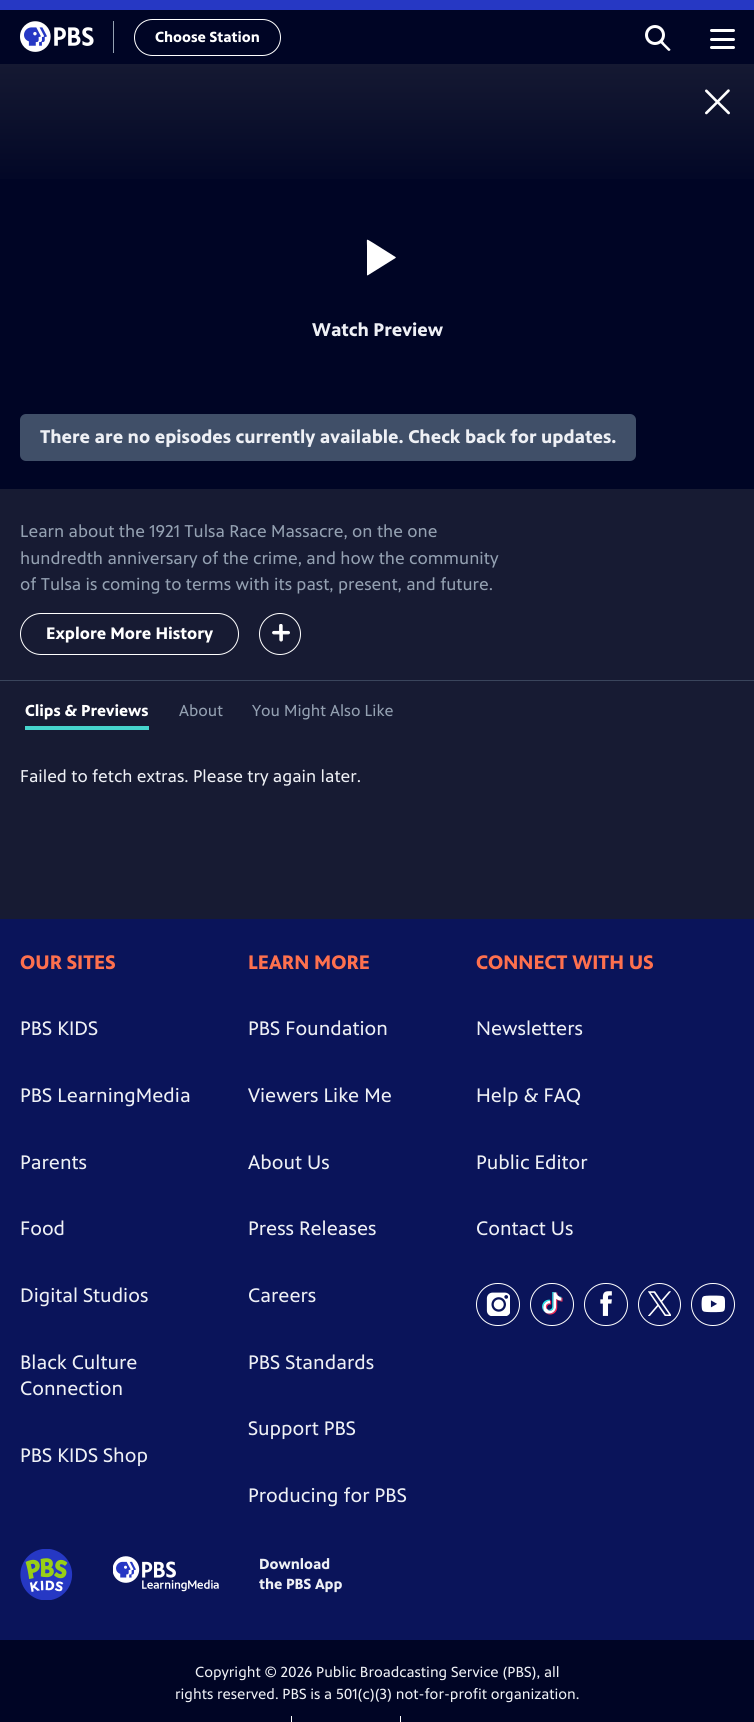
import math
import cairo

surface = cairo.ImageSurface(cairo.FORMAT_RGB24, 754, 1722)
ctx = cairo.Context(surface)
options = cairo.FontOptions()
options.set_hint_metrics(cairo.HINT_METRICS_OFF)
options.set_hint_style(cairo.HINT_STYLE_NONE)
ctx.set_font_options(options)
ctx.set_miter_limit(4)


def set_color(code):
    ctx.set_source_rgb(*(v / 255 for v in bytes.fromhex(code[-6:])))


def draw_text(x, y, s, family, size, color, bold=False, italic=False):
    ctx.select_font_face(family, cairo.FONT_SLANT_ITALIC if italic else cairo.FONT_SLANT_NORMAL, cairo.FONT_WEIGHT_BOLD if bold else cairo.FONT_WEIGHT_NORMAL)
    ctx.set_font_size(size)
    set_color(color)
    ctx.move_to(x, y)
    ctx.show_text(s)


def fill_rect(x, y, w, h, color):
    set_color(color)
    ctx.rectangle(x, y, w, h)
    ctx.fill()


def rounded_rect(x, y, w, h, r):
    ctx.new_sub_path()
    for i, (u, v) in enumerate([(x + w - r, y + h - r), (x + r, y + h - r), (x + r, y + r), (x + w - r, y + r)]):
        ctx.arc(u, v, r, i * math.pi / 2, (i + 1) * math.pi / 2)
    ctx.close_path()


def draw_image(path, x, y, w, h):
    ctx.save()
    ctx.set_source_surface(cairo.ImageSurface.create_from_png(path), x, y)
    ctx.rectangle(x, y, w, h)
    ctx.fill()
    ctx.restore()


set_color("#000525")
ctx.paint()
fill_rect(0, 0, 754, 10, "#2638c4")
draw_image("assets/img1.png", 20, 21, 74, 31)
fill_rect(113, 21, 1, 32, "#94a1b2")
rounded_rect(134.5, 19.5, 146, 36, 18)
set_color("#ffffff")
ctx.set_line_width(1)
ctx.stroke()
draw_text(155, 42, "Choose Station", "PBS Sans", 15, "#ffffff", bold=True)
ctx.new_path()
ctx.arc(655, 35, 8.5, 0, 2 * math.pi)
ctx.set_line_width(3)
ctx.stroke()
ctx.new_path()
ctx.move_to(668, 50.5)
ctx.line_to(659.5, 42)
ctx.line_to(660, 40.5)
ctx.curve_to(661, 38.5, 664, 42.5, 664.5, 43.5)
ctx.line_to(670.5, 49.5)
ctx.curve_to(670.5, 50.5, 669, 51.5, 668, 50.5)
ctx.close_path()
ctx.fill()
rounded_rect(710, 29, 25, 3, 1.5)
ctx.fill()
rounded_rect(710, 38, 25, 3, 1.5)
ctx.fill()
rounded_rect(710, 46, 25, 3, 1.5)
ctx.fill()
fill_rect(0, 489, 754, 430, "#171b33")
gradient = cairo.LinearGradient(378, 64, 378, 200)
gradient.add_color_stop_rgba(0, 0.082, 0.098, 0.196, 1)
gradient.add_color_stop_rgba(0.96, 0, 0.02, 0.145, 1)
ctx.set_source(gradient)
ctx.rectangle(0, 64, 754, 115)
ctx.fill()
draw_image("assets/img2.png", 705, 89, 25, 26)
set_color("#ffffff")
ctx.new_path()
ctx.move_to(395.5, 257)
ctx.line_to(372.5, 242.5)
ctx.curve_to(365.5, 238.5, 367, 238, 367, 246)
ctx.line_to(367, 275)
ctx.line_to(367.5, 275.5)
ctx.line_to(395.5, 258)
ctx.curve_to(396, 257.5, 396, 257.5, 395.5, 257)
ctx.fill()
draw_text(312, 336, "Watch Preview", "PBS Sans", 18.8, "#eef0f5", bold=True)
set_color("#404f68")
rounded_rect(20, 414, 616, 47, 6)
ctx.fill()
draw_text(40, 443, "There are no episodes currently available. Check back for updates.", "PBS Sans", 18.8, "#eef0f5", bold=True)
draw_text(20, 537, "Learn about the 1921 Tulsa Race Massacre, on the one", "PBS Sans", 17.5, "#94a1b2")
draw_text(20, 564, "hundredth anniversary of the crime, and how the community", "PBS Sans", 17.5, "#94a1b2")
draw_text(20, 590, "of Tulsa is coming to terms with its past, present, and future.", "PBS Sans", 17.5, "#94a1b2")
rounded_rect(20.5, 613.5, 218, 41, 20.5)
set_color("#ffffff")
ctx.set_line_width(1)
ctx.stroke()
draw_text(46, 639, "Explore More History", "PBS Sans", 17, "#ffffff", bold=True)
ctx.new_path()
ctx.arc(280, 634, 20.5, 0, 2 * math.pi)
ctx.stroke()
draw_image("assets/img3.png", 272, 624, 18, 18)
fill_rect(0, 680, 754, 1, "#3a455c")
draw_text(25, 716, "Clips & Previews", "PBS Sans", 16.25, "#ffffff", bold=True)
fill_rect(25, 726, 124, 4, "#46d4cd")
draw_text(179, 716, "About", "PBS Sans", 16.25, "#94a1b2")
draw_text(252, 716, "You Might Also Like", "PBS Sans", 16.25, "#94a1b2")
draw_text(20, 782, "Failed to fetch extras. Please try again later.", "PBS Sans", 17.5, "#eef0f5")
fill_rect(0, 919, 754, 721, "#0a145a")
draw_text(20, 969, "OUR SITES", "PBS Sans", 20, "#fe704e", bold=True)
draw_text(20, 1035, "PBS KIDS", "PBS Sans", 20, "#eef0f5")
draw_text(20, 1102, "PBS LearningMedia", "PBS Sans", 20, "#eef0f5")
draw_text(20, 1169, "Parents", "PBS Sans", 20, "#eef0f5")
draw_text(20, 1235, "Food", "PBS Sans", 20, "#eef0f5")
draw_text(20, 1302, "Digital Studios", "PBS Sans", 20, "#eef0f5")
draw_text(20, 1369, "Black Culture", "PBS Sans", 20, "#eef0f5")
draw_text(20, 1395, "Connection", "PBS Sans", 20, "#eef0f5")
draw_text(20, 1462, "PBS KIDS Shop", "PBS Sans", 20, "#eef0f5")
draw_text(248, 969, "LEARN MORE", "PBS Sans", 20, "#fe704e", bold=True)
draw_text(248, 1035, "PBS Foundation", "PBS Sans", 20, "#eef0f5")
draw_text(248, 1102, "Viewers Like Me", "PBS Sans", 20, "#eef0f5")
draw_text(248, 1169, "About Us", "PBS Sans", 20, "#eef0f5")
draw_text(248, 1235, "Press Releases", "PBS Sans", 20, "#eef0f5")
draw_text(248, 1302, "Careers", "PBS Sans", 20, "#eef0f5")
draw_text(248, 1369, "PBS Standards", "PBS Sans", 20, "#eef0f5")
draw_text(248, 1435, "Support PBS", "PBS Sans", 20, "#eef0f5")
draw_text(248, 1502, "Producing for PBS", "PBS Sans", 20, "#eef0f5")
draw_text(476, 969, "CONNECT WITH US", "PBS Sans", 20, "#fe704e", bold=True)
draw_text(476, 1035, "Newsletters", "PBS Sans", 20, "#eef0f5")
draw_text(476, 1102, "Help & FAQ", "PBS Sans", 20, "#eef0f5")
draw_text(476, 1169, "Public Editor", "PBS Sans", 20, "#eef0f5")
draw_text(476, 1235, "Contact Us", "PBS Sans", 20, "#eef0f5")
rounded_rect(476.5, 1283.5, 43, 42, 21)
set_color("#ffffff")
ctx.stroke()
draw_image("assets/img4.png", 486, 1292, 24, 24)
rounded_rect(530.5, 1283.5, 43, 42, 21)
ctx.stroke()
draw_image("assets/img5.png", 542, 1292, 21, 23)
rounded_rect(584.5, 1283.5, 43, 42, 21)
ctx.stroke()
draw_image("assets/img6.png", 600, 1291, 12, 25)
ctx.arc(659.5, 1304.5, 21, 0, 2 * math.pi)
ctx.stroke()
draw_image("assets/img7.png", 648, 1291, 23, 25)
rounded_rect(691.5, 1283.5, 43, 42, 21)
ctx.stroke()
draw_image("assets/img8.png", 701, 1295, 24, 18)
draw_image("assets/img9.png", 20, 1549, 53, 51)
draw_image("assets/img10.png", 113, 1556, 106, 36)
draw_text(259, 1569, "Download", "PBS Sans", 15, "#eef0f5", bold=True)
draw_text(259, 1589, "the PBS App", "PBS Sans", 15, "#eef0f5", bold=True)
draw_text(195, 1677, "Copyright © 2026 Public Broadcasting Service (PBS), all", "PBS Sans", 15, "#eef0f5")
draw_text(175, 1699, "rights reserved. PBS is a 501(c)(3) not-for-profit organization.", "PBS Sans", 15, "#eef0f5")
fill_rect(291, 1716, 1, 6, "#ffffff")
fill_rect(400, 1716, 1, 6, "#ffffff")
surface.write_to_png("output.png")
